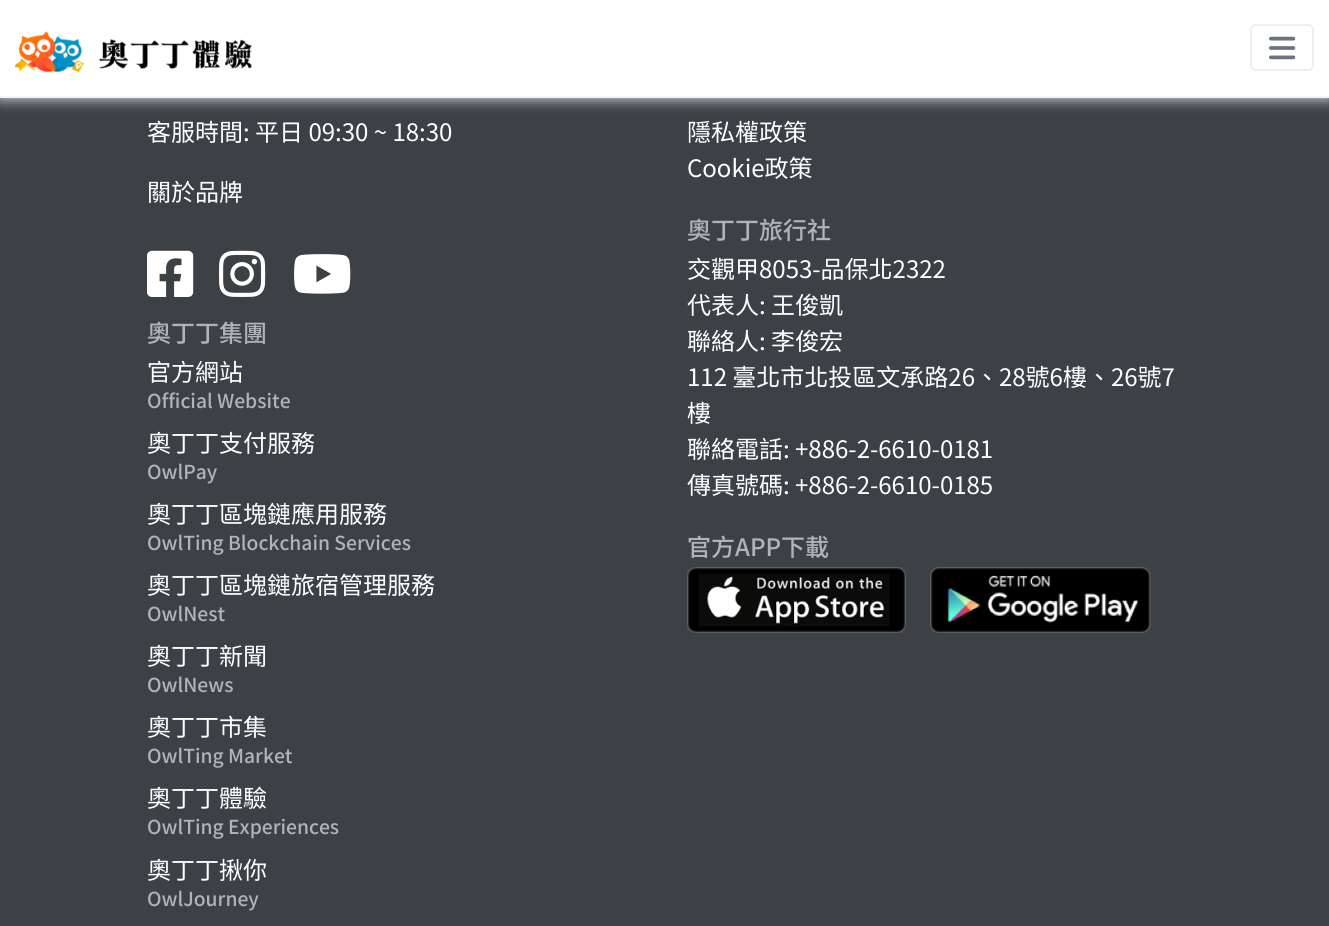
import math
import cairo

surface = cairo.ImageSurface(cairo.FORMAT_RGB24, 1329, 926)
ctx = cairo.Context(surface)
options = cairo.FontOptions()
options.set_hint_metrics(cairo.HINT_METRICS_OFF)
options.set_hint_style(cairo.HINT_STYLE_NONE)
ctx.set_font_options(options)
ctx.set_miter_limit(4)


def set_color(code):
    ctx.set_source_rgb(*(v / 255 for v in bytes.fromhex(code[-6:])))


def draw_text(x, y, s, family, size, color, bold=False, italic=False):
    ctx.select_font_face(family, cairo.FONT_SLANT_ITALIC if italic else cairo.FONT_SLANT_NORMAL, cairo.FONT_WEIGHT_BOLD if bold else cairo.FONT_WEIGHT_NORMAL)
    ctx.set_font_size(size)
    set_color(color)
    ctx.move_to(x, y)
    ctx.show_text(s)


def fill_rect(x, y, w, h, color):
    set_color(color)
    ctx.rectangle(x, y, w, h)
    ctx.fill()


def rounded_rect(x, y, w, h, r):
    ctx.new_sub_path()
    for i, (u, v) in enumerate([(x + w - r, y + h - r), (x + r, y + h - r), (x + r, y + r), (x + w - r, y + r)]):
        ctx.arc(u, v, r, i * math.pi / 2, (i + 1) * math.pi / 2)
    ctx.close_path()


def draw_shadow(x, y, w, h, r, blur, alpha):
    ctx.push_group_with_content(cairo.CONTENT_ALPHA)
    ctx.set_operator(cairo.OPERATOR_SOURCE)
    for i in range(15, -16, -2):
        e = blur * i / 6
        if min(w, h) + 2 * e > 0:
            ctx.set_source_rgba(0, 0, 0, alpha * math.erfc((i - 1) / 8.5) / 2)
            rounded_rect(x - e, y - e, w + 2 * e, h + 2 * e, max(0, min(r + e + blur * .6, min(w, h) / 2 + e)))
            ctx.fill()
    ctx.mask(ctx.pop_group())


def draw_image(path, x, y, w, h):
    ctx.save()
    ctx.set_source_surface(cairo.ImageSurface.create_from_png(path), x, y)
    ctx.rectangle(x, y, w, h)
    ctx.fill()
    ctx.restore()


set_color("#3c4145")
ctx.paint()
set_color("#f2f4f6")
draw_shadow(0, 0, 1329, 98, 0, 7.5, 1)
fill_rect(0, 0, 1329, 96, "#ffffff")
fill_rect(0, 96, 1329, 2, "#f2f4f6")
draw_image("assets/img1.png", 15, 31, 237, 42)
rounded_rect(1251, 25, 62, 45, 5)
set_color("#eeeeee")
ctx.stroke()
draw_image("assets/img2.png", 1269, 36, 27, 24)
draw_text(147, 141, "客服時間: 平日 09:30 ~ 18:30", "Noto Sans TC", 24, "#ffffff")
draw_text(147, 201, "關於品牌", "Noto Sans TC", 24, "#ffffff")
draw_image("assets/img3.png", 147, 250, 47, 47)
draw_image("assets/img4.png", 219, 250, 47, 47)
draw_image("assets/img5.png", 294, 254, 57, 40)
draw_text(147, 342, "奧丁丁集團", "Noto Sans TC Medium", 24, "#adb4ba")
draw_text(147, 381, "官方網站", "Noto Sans TC", 24, "#ffffff")
draw_text(147, 408, "Official Website", "Noto Sans TC Medium", 19.25, "#adb4ba")
draw_text(147, 452, "奧丁丁支付服務", "Noto Sans TC", 24, "#ffffff")
draw_text(147, 479, "OwlPay", "Noto Sans TC Medium", 19.25, "#adb4ba")
draw_text(147, 523, "奧丁丁區塊鏈應用服務", "Noto Sans TC", 24, "#ffffff")
draw_text(147, 550, "OwlTing Blockchain Services", "Noto Sans TC Medium", 19.25, "#adb4ba")
draw_text(147, 594, "奧丁丁區塊鏈旅宿管理服務", "Noto Sans TC", 24, "#ffffff")
draw_text(147, 621, "OwlNest", "Noto Sans TC Medium", 19.25, "#adb4ba")
draw_text(147, 665, "奧丁丁新聞", "Noto Sans TC", 24, "#ffffff")
draw_text(147, 692, "OwlNews", "Noto Sans TC Medium", 19.25, "#adb4ba")
draw_text(147, 736, "奧丁丁市集", "Noto Sans TC", 24, "#ffffff")
draw_text(147, 763, "OwlTing Market", "Noto Sans TC Medium", 19.25, "#adb4ba")
draw_text(147, 807, "奧丁丁體驗", "Noto Sans TC", 24, "#ffffff")
draw_text(147, 834, "OwlTing Experiences", "Noto Sans TC Medium", 19.25, "#adb4ba")
draw_text(147, 879, "奧丁丁揪你", "Noto Sans TC", 24, "#ffffff")
draw_text(147, 906, "OwlJourney", "Noto Sans TC Medium", 19.25, "#adb4ba")
draw_text(687, 141, "隱私權政策", "Noto Sans TC", 24, "#ffffff")
draw_text(687, 177, "Cookie政策", "Noto Sans TC", 24, "#ffffff")
draw_text(687, 239, "奧丁丁旅行社", "Noto Sans TC Medium", 24, "#adb4ba")
draw_text(687, 278, "交觀甲8053-品保北2322", "Noto Sans TC", 24, "#ffffff")
draw_text(687, 314, "代表人: 王俊凱", "Noto Sans TC", 24, "#ffffff")
draw_text(687, 350, "聯絡人: 李俊宏", "Noto Sans TC", 24, "#ffffff")
draw_text(687, 386, "112 臺北市北投區文承路26、28號6樓、26號7", "Noto Sans TC", 24, "#ffffff")
draw_text(687, 422, "樓", "Noto Sans TC", 24, "#ffffff")
draw_text(687, 458, "聯絡電話: +886-2-6610-0181", "Noto Sans TC", 24, "#ffffff")
draw_text(687, 494, "傳真號碼: +886-2-6610-0185", "Noto Sans TC", 24, "#ffffff")
draw_text(687, 556, "官方APP下載", "Noto Sans TC Medium", 24, "#adb4ba")
draw_image("assets/img6.png", 687, 567, 219, 66)
draw_image("assets/img7.png", 930, 567, 221, 66)
surface.write_to_png("output.png")
